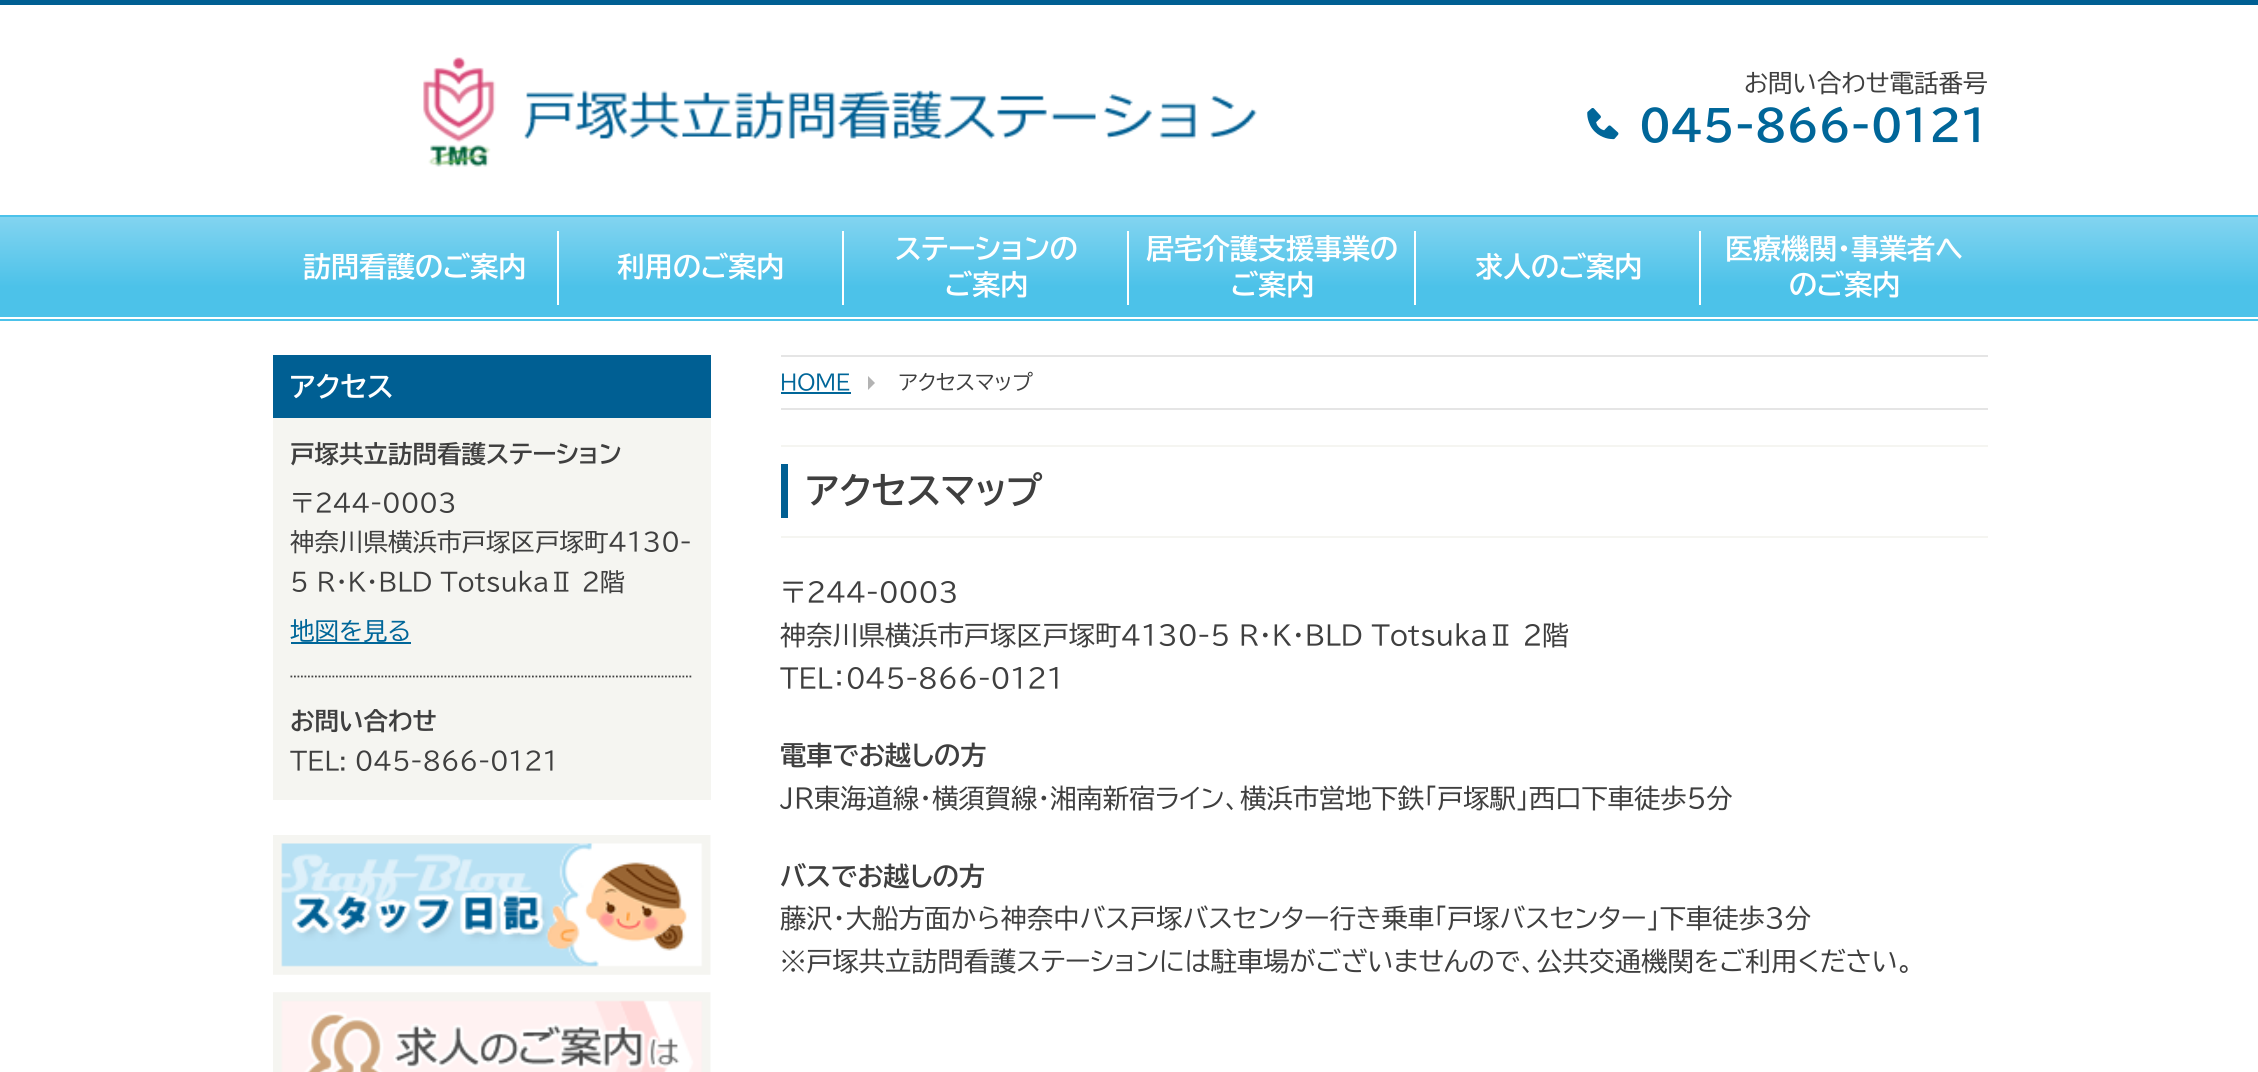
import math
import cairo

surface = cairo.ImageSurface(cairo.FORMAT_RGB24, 2258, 1072)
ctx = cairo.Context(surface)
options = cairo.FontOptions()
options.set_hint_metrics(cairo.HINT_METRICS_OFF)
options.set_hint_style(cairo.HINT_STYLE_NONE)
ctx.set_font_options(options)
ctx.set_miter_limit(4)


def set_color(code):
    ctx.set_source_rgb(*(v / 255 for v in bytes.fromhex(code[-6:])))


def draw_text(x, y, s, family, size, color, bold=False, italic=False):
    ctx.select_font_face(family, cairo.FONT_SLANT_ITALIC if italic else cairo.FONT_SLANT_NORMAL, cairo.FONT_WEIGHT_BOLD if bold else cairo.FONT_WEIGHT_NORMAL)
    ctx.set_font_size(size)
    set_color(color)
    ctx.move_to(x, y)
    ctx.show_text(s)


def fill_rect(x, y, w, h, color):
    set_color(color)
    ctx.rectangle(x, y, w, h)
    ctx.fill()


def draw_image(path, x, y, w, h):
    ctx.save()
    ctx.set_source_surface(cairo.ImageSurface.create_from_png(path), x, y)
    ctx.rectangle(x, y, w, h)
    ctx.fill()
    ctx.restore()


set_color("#ffffff")
ctx.paint()
fill_rect(0, 0, 2258, 5, "#005f93")
draw_image("assets/img1.png", 423, 57, 834, 110)
draw_text(1744, 92, "お問い合わせ電話番号", "BIZ UDPGothic", 24.5, "#3f3f3f")
draw_image("assets/img2.png", 1587, 108, 32, 32)
draw_text(1639, 141, "045-866-0121", "BIZ UDPGothic", 42, "#006699", bold=True)
fill_rect(0, 215, 2258, 2, "#4cc2ea")
fill_rect(0, 319, 2258, 2, "#4cc2ea")
gradient = cairo.LinearGradient(1130, 217, 1130, 317)
gradient.add_color_stop_rgba(0, 0.51, 0.831, 0.941, 1)
gradient.add_color_stop_rgba(0.7, 0.298, 0.761, 0.914, 1)
ctx.set_source(gradient)
ctx.rectangle(0, 217, 2258, 100)
ctx.fill()
draw_text(303, 277, "訪問看護のご案内", "BIZ UDPGothic", 28, "#ffffff", bold=True)
fill_rect(557, 231, 2, 74, "#ffffff")
draw_text(617, 277, "利用のご案内", "BIZ UDPGothic", 28, "#ffffff", bold=True)
fill_rect(842, 231, 2, 74, "#ffffff")
draw_text(895, 259, "ステーションの", "BIZ UDPGothic", 28, "#ffffff", bold=True)
fill_rect(1127, 231, 2, 74, "#ffffff")
draw_text(945, 295, "ご案内", "BIZ UDPGothic", 28, "#ffffff", bold=True)
draw_text(1146, 259, "居宅介護支援事業の", "BIZ UDPGothic", 28, "#ffffff", bold=True)
fill_rect(1414, 231, 2, 74, "#ffffff")
draw_text(1231, 295, "ご案内", "BIZ UDPGothic", 28, "#ffffff", bold=True)
draw_text(1475, 277, "求人のご案内", "BIZ UDPGothic", 28, "#ffffff", bold=True)
fill_rect(1699, 231, 2, 74, "#ffffff")
draw_text(1725, 259, "医療機関・事業者へ", "BIZ UDPGothic", 28, "#ffffff", bold=True)
draw_text(1789, 295, "のご案内", "BIZ UDPGothic", 28, "#ffffff", bold=True)
fill_rect(273, 418, 438, 382, "#f5f5f1")
fill_rect(273, 355, 438, 63, "#005f93")
draw_text(290, 397, "アクセス", "BIZ UDPGothic", 28, "#ffffff", bold=True)
draw_text(290, 463, "戸塚共立訪問看護ステーション", "BIZ UDPGothic", 24.5, "#3f3f3f", bold=True)
draw_text(290, 512, "〒244-0003", "BIZ UDPGothic", 24.5, "#3f3f3f")
draw_text(290, 551, "神奈川県横浜市戸塚区戸塚町4130-", "BIZ UDPGothic", 24.5, "#3f3f3f")
draw_text(290, 591, "5 R･K･BLD TotsukaⅡ 2階", "BIZ UDPGothic", 24.5, "#3f3f3f")
fill_rect(291, 642, 120, 2, "#006699")
draw_text(290, 640, "地図を見る", "BIZ UDPGothic", 24.5, "#006699")
ctx.new_path()
ctx.move_to(290.5, 676.5)
ctx.line_to(693, 676.5)
set_color("#3f3f3f")
ctx.set_line_width(1.8)
ctx.set_dash([1.75, 1.75])
ctx.stroke()
draw_text(290, 730, "お問い合わせ", "BIZ UDPGothic", 24.5, "#3f3f3f", bold=True)
draw_text(290, 770, "TEL: 045-866-0121", "BIZ UDPGothic", 24.5, "#3f3f3f")
draw_image("assets/img3.png", 273, 835, 438, 140)
draw_image("assets/img4.png", 273, 992, 438, 80)
fill_rect(781, 355, 1207, 2, "#e5e5e5")
fill_rect(781, 408, 1207, 2, "#e5e5e5")
draw_text(780, 390, "HOME", "BIZ UDPGothic", 21, "#006699")
fill_rect(781, 392, 70, 2, "#006699")
set_color("#b3b3b3")
ctx.new_path()
ctx.move_to(868, 390)
ctx.line_to(868, 376)
ctx.line_to(875, 383)
ctx.close_path()
ctx.fill()
draw_text(899, 390, "アクセスマップ", "BIZ UDPGothic", 21, "#3f3f3f")
fill_rect(781, 445, 1207, 2, "#f5f5f1")
fill_rect(781, 536, 1207, 2, "#f5f5f1")
fill_rect(781, 464, 7, 54, "#005f93")
draw_text(806, 504, "アクセスマップ", "BIZ UDPGothic", 36.5, "#3f3f3f", bold=True)
draw_text(780, 602, "〒244-0003", "BIZ UDPGothic", 26.25, "#3f3f3f")
draw_text(780, 645, "神奈川県横浜市戸塚区戸塚町4130-5 R・K・BLD TotsukaⅡ 2階", "BIZ UDPGothic", 26.25, "#3f3f3f")
draw_text(780, 688, "TEL：045-866-0121", "BIZ UDPGothic", 26.25, "#3f3f3f")
draw_text(780, 765, "電車でお越しの方", "BIZ UDPGothic", 26.25, "#3f3f3f", bold=True)
draw_text(780, 808, "JR東海道線・横須賀線・湘南新宿ライン、横浜市営地下鉄「戸塚駅」西口下車徒歩5分", "BIZ UDPGothic", 26.25, "#3f3f3f")
draw_text(780, 886, "バスでお越しの方", "BIZ UDPGothic", 26.25, "#3f3f3f", bold=True)
draw_text(780, 928, "藤沢・大船方面から神奈中バス戸塚バスセンター行き乗車「戸塚バスセンター」下車徒歩3分", "BIZ UDPGothic", 26.25, "#3f3f3f")
draw_text(780, 971, "※戸塚共立訪問看護ステーションには駐車場がございませんので、公共交通機関をご利用ください。", "BIZ UDPGothic", 26.25, "#3f3f3f")
surface.write_to_png("output.png")
